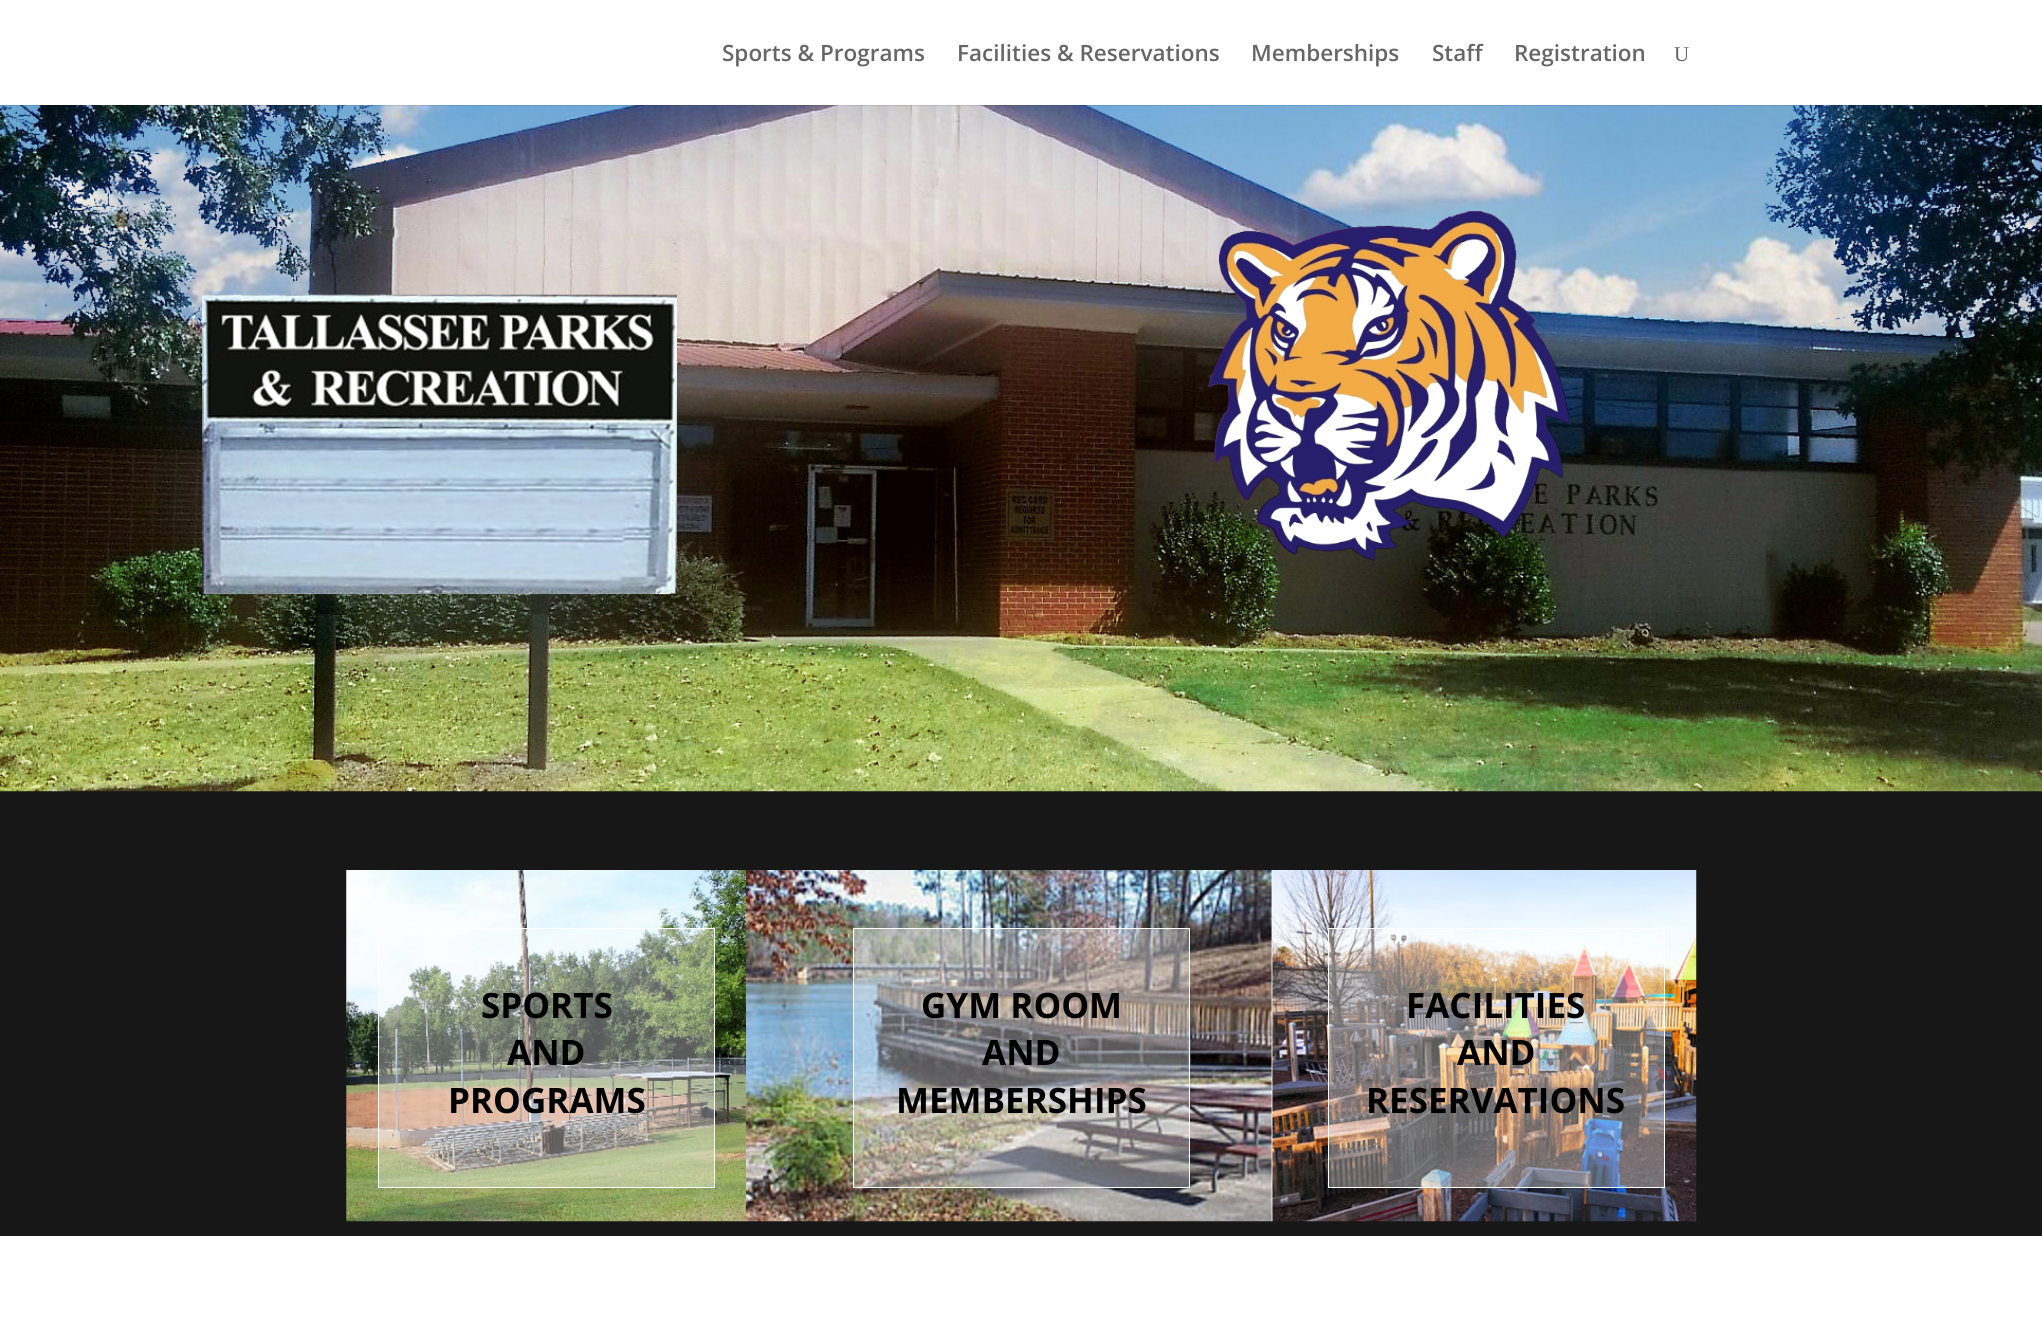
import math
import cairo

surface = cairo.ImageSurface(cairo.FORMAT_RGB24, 2042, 1339)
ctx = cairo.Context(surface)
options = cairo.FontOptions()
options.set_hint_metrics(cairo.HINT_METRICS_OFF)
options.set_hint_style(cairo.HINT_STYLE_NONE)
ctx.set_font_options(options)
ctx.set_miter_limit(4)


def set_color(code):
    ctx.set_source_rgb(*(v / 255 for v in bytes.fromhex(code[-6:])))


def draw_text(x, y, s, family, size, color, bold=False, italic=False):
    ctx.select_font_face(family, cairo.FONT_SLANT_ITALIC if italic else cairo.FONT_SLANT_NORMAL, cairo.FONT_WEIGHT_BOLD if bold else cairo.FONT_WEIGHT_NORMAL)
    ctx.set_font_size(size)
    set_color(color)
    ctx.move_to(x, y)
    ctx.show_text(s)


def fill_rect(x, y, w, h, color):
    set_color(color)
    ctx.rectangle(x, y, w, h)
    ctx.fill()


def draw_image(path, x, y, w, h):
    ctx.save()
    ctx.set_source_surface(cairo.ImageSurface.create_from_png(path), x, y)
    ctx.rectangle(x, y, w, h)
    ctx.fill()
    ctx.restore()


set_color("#ffffff")
ctx.paint()
fill_rect(0, 791, 2042, 445, "#171717")
draw_image("assets/img1.png", 0, 105, 2042, 687)
ctx.set_source_rgba(0, 0, 0, 0.1)
ctx.new_path()
ctx.move_to(0, 105)
ctx.line_to(0, 106)
ctx.line_to(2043, 106)
ctx.line_to(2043, 1)
ctx.line_to(2042, 1)
ctx.line_to(2042, 105)
ctx.close_path()
ctx.fill()
draw_text(722, 61, "Sports & Programs", "Open Sans SemiBold", 22.5, "#666666")
draw_text(957, 61, "Facilities & Reservations", "Open Sans SemiBold", 22.5, "#666666")
draw_text(1251, 61, "Memberships", "Open Sans SemiBold", 22.5, "#666666")
draw_text(1432, 61, "Staff", "Open Sans SemiBold", 22.5, "#666666")
draw_text(1514, 61, "Registration", "Open Sans SemiBold", 22.5, "#666666")
draw_text(1674, 61, "U", "Liberation Serif", 21, "#666666")
draw_image("assets/img2.png", 1207, 211, 363, 350)
draw_image("assets/img3.png", 346, 870, 1351, 352)
ctx.set_source_rgba(1, 1, 1, 0.34)
ctx.rectangle(378.5, 928.5, 336, 259)
ctx.fill_preserve()
set_color("#ffffff")
ctx.set_line_width(1)
ctx.stroke()
draw_text(481, 1018, "SPORTS", "Open Sans", 35, "#000000", bold=True)
draw_text(507, 1065, "AND", "Open Sans", 35, "#000000", bold=True)
draw_text(448, 1113, "PROGRAMS", "Open Sans", 35, "#000000", bold=True)
ctx.set_source_rgba(1, 1, 1, 0.34)
ctx.rectangle(853.5, 928.5, 336, 259)
ctx.fill_preserve()
set_color("#ffffff")
ctx.stroke()
draw_text(921, 1018, "GYM ROOM", "Open Sans", 35, "#000000", bold=True)
draw_text(982, 1065, "AND", "Open Sans", 35, "#000000", bold=True)
draw_text(896, 1113, "MEMBERSHIPS", "Open Sans", 35, "#000000", bold=True)
ctx.set_source_rgba(1, 1, 1, 0.34)
ctx.rectangle(1328.5, 928.5, 336, 259)
ctx.fill_preserve()
set_color("#ffffff")
ctx.stroke()
draw_text(1406, 1018, "FACILITIES", "Open Sans", 35, "#000000", bold=True)
draw_text(1457, 1065, "AND", "Open Sans", 35, "#000000", bold=True)
draw_text(1366, 1113, "RESERVATIONS", "Open Sans", 35, "#000000", bold=True)
surface.write_to_png("output.png")
